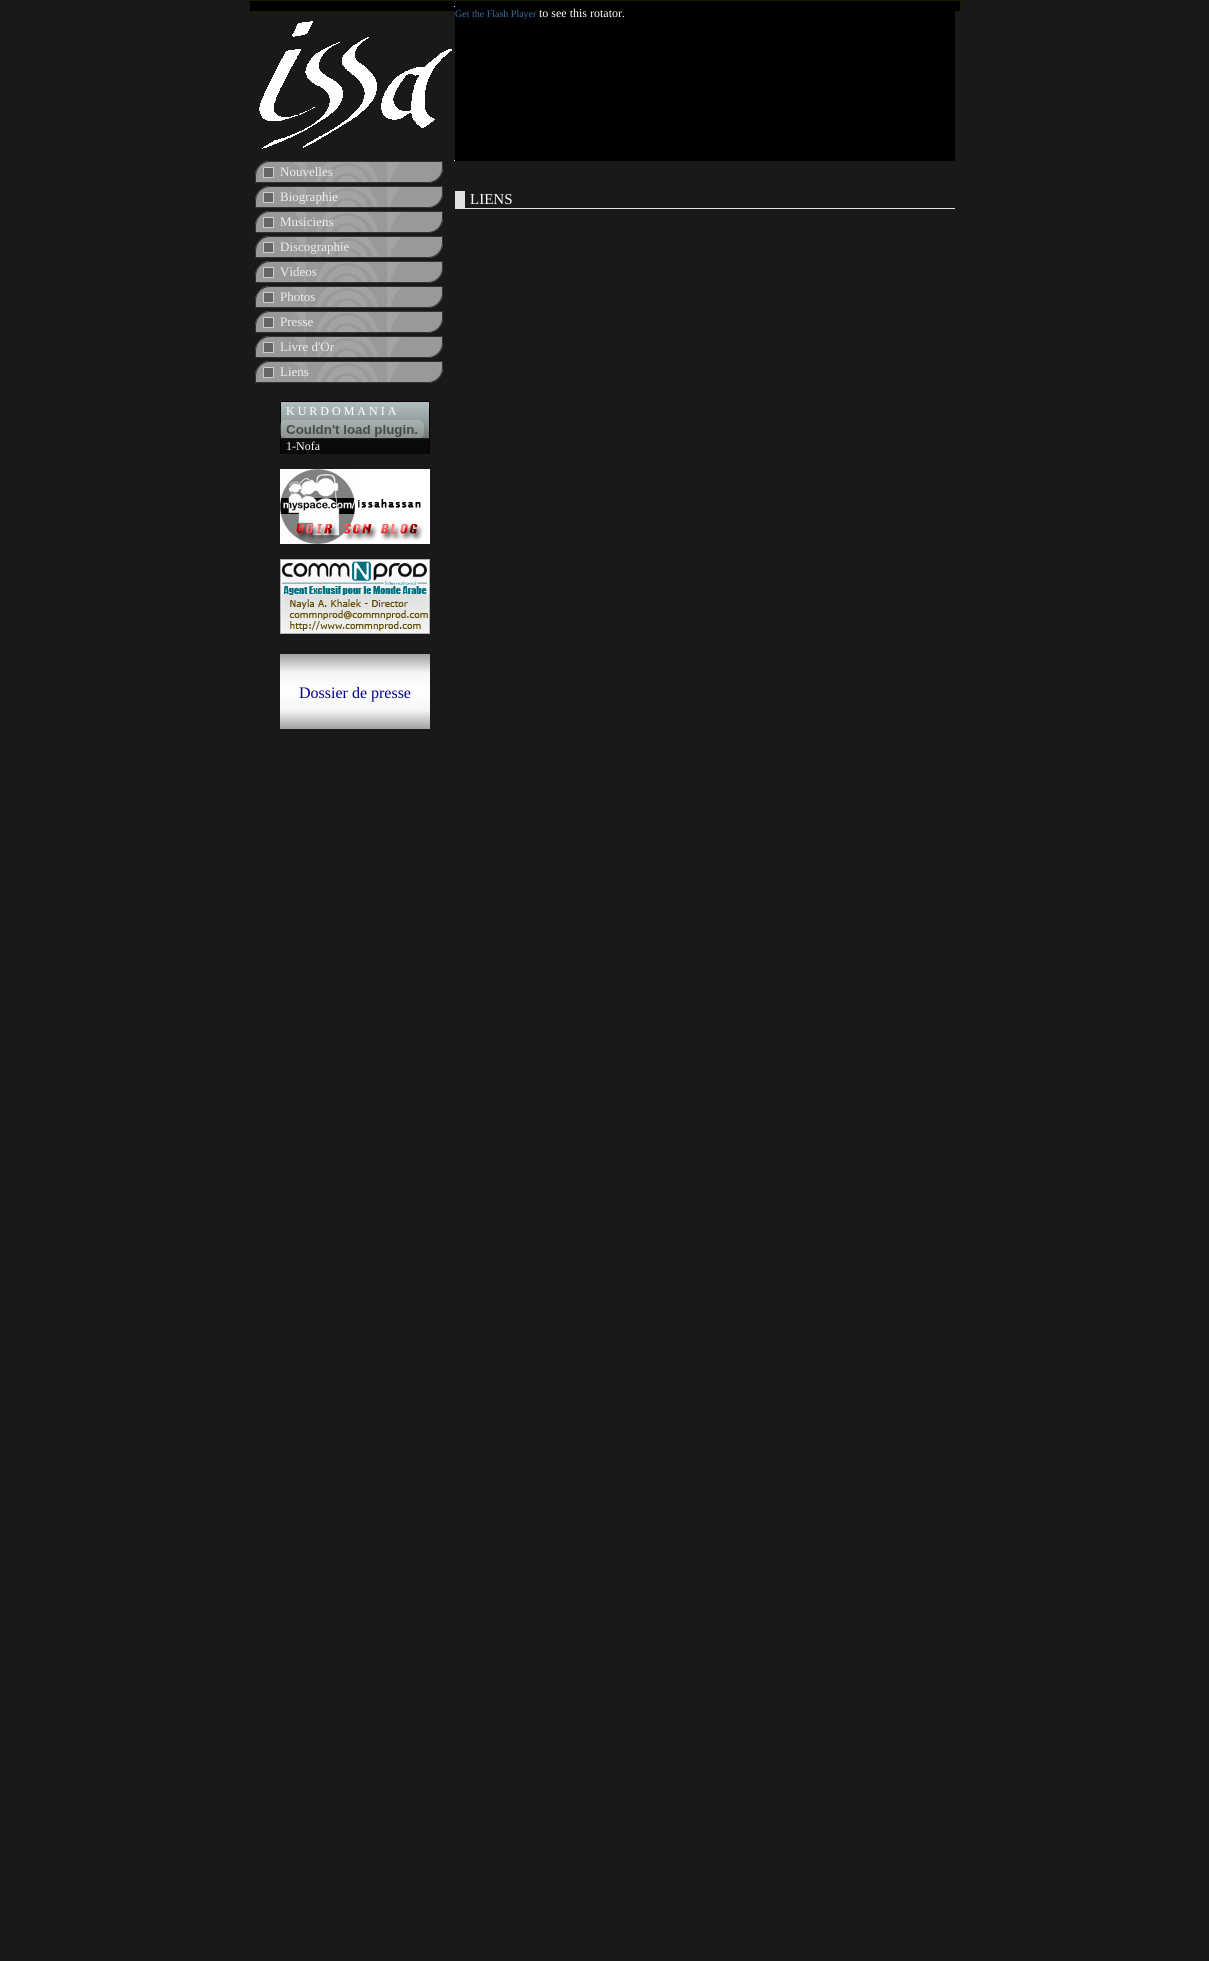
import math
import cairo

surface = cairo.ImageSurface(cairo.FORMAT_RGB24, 1209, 1961)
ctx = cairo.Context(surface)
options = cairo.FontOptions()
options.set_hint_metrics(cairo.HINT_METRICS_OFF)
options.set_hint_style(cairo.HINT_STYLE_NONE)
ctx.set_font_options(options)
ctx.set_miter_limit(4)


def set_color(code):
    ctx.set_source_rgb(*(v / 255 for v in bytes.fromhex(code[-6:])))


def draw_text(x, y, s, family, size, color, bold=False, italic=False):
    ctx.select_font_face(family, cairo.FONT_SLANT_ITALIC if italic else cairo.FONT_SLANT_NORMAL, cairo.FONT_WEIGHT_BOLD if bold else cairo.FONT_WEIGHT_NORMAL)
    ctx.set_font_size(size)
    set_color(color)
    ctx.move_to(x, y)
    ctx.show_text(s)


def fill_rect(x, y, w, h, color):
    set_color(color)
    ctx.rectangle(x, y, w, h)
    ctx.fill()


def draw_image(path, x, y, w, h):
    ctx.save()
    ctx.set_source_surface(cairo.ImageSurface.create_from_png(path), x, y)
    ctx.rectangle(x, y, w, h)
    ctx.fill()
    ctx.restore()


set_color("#191919")
ctx.paint()
set_color("#000000")
ctx.rectangle(249.5, 0.5, 711, 11)
ctx.fill_preserve()
set_color("#191900")
ctx.set_line_width(1)
ctx.stroke()
fill_rect(455, 11, 500, 150, "#000000")
draw_image("assets/img1.png", 259, 6, 196, 155)
draw_text(455, 17, "Get the Flash Player", "Liberation Serif", 10, "#406b9b")
draw_text(539, 17, "to see this rotator.", "Liberation Serif", 12, "#ffffff")
fill_rect(465, 208, 490, 1, "#e0e0e0")
fill_rect(455, 191, 10, 18, "#e0e0e0")
draw_text(470, 204, "LIENS", "Liberation Serif", 15, "#ffffff")
draw_image("assets/img2.png", 255, 161, 188, 22)
ctx.new_path()
ctx.move_to(270, 161.5)
ctx.line_to(442.5, 161.5)
ctx.line_to(442.5, 168)
ctx.curve_to(442.5, 176, 436, 182.5, 428, 182.5)
ctx.line_to(255.5, 182.5)
ctx.line_to(255.5, 176)
ctx.curve_to(255.5, 168, 262, 161.5, 270, 161.5)
ctx.close_path()
set_color("#333333")
ctx.stroke()
draw_text(280, 176, "Nouvelles", "Liberation Serif", 13, "#eeeeee")
draw_image("assets/img2.png", 255, 186, 188, 22)
ctx.new_path()
ctx.move_to(270, 186.5)
ctx.line_to(442.5, 186.5)
ctx.line_to(442.5, 193)
ctx.curve_to(442.5, 201, 436, 207.5, 428, 207.5)
ctx.line_to(255.5, 207.5)
ctx.line_to(255.5, 201)
ctx.curve_to(255.5, 193, 262, 186.5, 270, 186.5)
ctx.close_path()
set_color("#333333")
ctx.stroke()
draw_text(280, 201, "Biographie", "Liberation Serif", 13, "#eeeeee")
draw_image("assets/img2.png", 255, 211, 188, 22)
ctx.new_path()
ctx.move_to(270, 211.5)
ctx.line_to(442.5, 211.5)
ctx.line_to(442.5, 218)
ctx.curve_to(442.5, 226, 436, 232.5, 428, 232.5)
ctx.line_to(255.5, 232.5)
ctx.line_to(255.5, 226)
ctx.curve_to(255.5, 218, 262, 211.5, 270, 211.5)
ctx.close_path()
set_color("#333333")
ctx.stroke()
draw_text(280, 226, "Musiciens", "Liberation Serif", 13, "#eeeeee")
draw_image("assets/img3.png", 255, 236, 188, 22)
ctx.new_path()
ctx.move_to(270, 236.5)
ctx.line_to(442.5, 236.5)
ctx.line_to(442.5, 243)
ctx.curve_to(442.5, 251, 436, 257.5, 428, 257.5)
ctx.line_to(255.5, 257.5)
ctx.line_to(255.5, 251)
ctx.curve_to(255.5, 243, 262, 236.5, 270, 236.5)
ctx.close_path()
set_color("#333333")
ctx.stroke()
draw_text(280, 251, "Discographie", "Liberation Serif", 13, "#eeeeee")
draw_image("assets/img2.png", 255, 261, 188, 22)
ctx.new_path()
ctx.move_to(270, 261.5)
ctx.line_to(442.5, 261.5)
ctx.line_to(442.5, 268)
ctx.curve_to(442.5, 276, 436, 282.5, 428, 282.5)
ctx.line_to(255.5, 282.5)
ctx.line_to(255.5, 276)
ctx.curve_to(255.5, 268, 262, 261.5, 270, 261.5)
ctx.close_path()
set_color("#333333")
ctx.stroke()
draw_text(280, 276, "Videos", "Liberation Serif", 13, "#eeeeee")
draw_image("assets/img2.png", 255, 286, 188, 22)
ctx.new_path()
ctx.move_to(270, 286.5)
ctx.line_to(442.5, 286.5)
ctx.line_to(442.5, 293)
ctx.curve_to(442.5, 301, 436, 307.5, 428, 307.5)
ctx.line_to(255.5, 307.5)
ctx.line_to(255.5, 301)
ctx.curve_to(255.5, 293, 262, 286.5, 270, 286.5)
ctx.close_path()
set_color("#333333")
ctx.stroke()
draw_text(280, 301, "Photos", "Liberation Serif", 13, "#eeeeee")
draw_image("assets/img2.png", 255, 311, 188, 22)
ctx.new_path()
ctx.move_to(270, 311.5)
ctx.line_to(442.5, 311.5)
ctx.line_to(442.5, 318)
ctx.curve_to(442.5, 326, 436, 332.5, 428, 332.5)
ctx.line_to(255.5, 332.5)
ctx.line_to(255.5, 326)
ctx.curve_to(255.5, 318, 262, 311.5, 270, 311.5)
ctx.close_path()
set_color("#333333")
ctx.stroke()
draw_text(280, 326, "Presse", "Liberation Serif", 13, "#eeeeee")
draw_image("assets/img2.png", 255, 336, 188, 22)
ctx.new_path()
ctx.move_to(270, 336.5)
ctx.line_to(442.5, 336.5)
ctx.line_to(442.5, 343)
ctx.curve_to(442.5, 351, 436, 357.5, 428, 357.5)
ctx.line_to(255.5, 357.5)
ctx.line_to(255.5, 351)
ctx.curve_to(255.5, 343, 262, 336.5, 270, 336.5)
ctx.close_path()
set_color("#333333")
ctx.stroke()
draw_text(280, 351, "Livre d'Or", "Liberation Serif", 13, "#eeeeee")
draw_image("assets/img2.png", 255, 361, 188, 22)
ctx.new_path()
ctx.move_to(270, 361.5)
ctx.line_to(442.5, 361.5)
ctx.line_to(442.5, 368)
ctx.curve_to(442.5, 376, 436, 382.5, 428, 382.5)
ctx.line_to(255.5, 382.5)
ctx.line_to(255.5, 376)
ctx.curve_to(255.5, 368, 262, 361.5, 270, 361.5)
ctx.close_path()
set_color("#333333")
ctx.stroke()
draw_text(280, 376, "Liens", "Liberation Serif", 13, "#eeeeee")
draw_image("assets/img4.png", 280, 401, 150, 53)
draw_text(286, 415, "K U R D O M A N I A", "Liberation Serif", 12, "#ffffff")
draw_image("assets/img5.png", 280, 420, 144, 18)
draw_text(286, 450, "1-Nofa", "Liberation Serif", 12, "#ffffff")
draw_image("assets/img6.png", 280, 469, 150, 75)
draw_image("assets/img7.png", 280, 559, 150, 75)
gradient = cairo.LinearGradient(355, 654, 355, 729)
gradient.add_color_stop_rgba(0, 0.627, 0.627, 0.627, 1)
gradient.add_color_stop_rgba(0.25, 0.957, 0.961, 0.965, 1)
gradient.add_color_stop_rgba(0.5, 1, 1, 1, 1)
gradient.add_color_stop_rgba(0.75, 0.957, 0.961, 0.965, 1)
gradient.add_color_stop_rgba(1, 0.627, 0.627, 0.627, 1)
ctx.set_source(gradient)
ctx.rectangle(280, 654, 150, 75)
ctx.fill()
draw_text(299, 698, "Dossier de presse", "Liberation Serif", 16, "#00008b")
surface.write_to_png("output.png")
